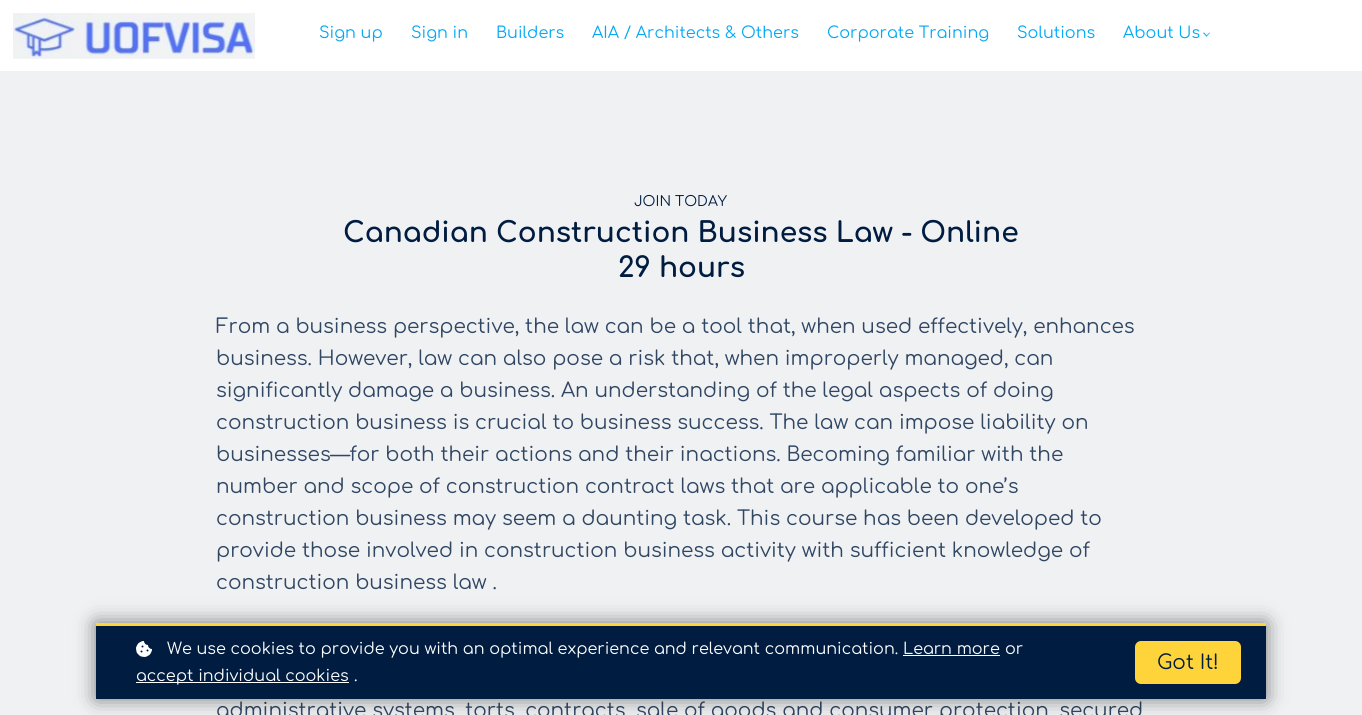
import math
import cairo

surface = cairo.ImageSurface(cairo.FORMAT_RGB24, 1362, 715)
ctx = cairo.Context(surface)
options = cairo.FontOptions()
options.set_hint_metrics(cairo.HINT_METRICS_OFF)
options.set_hint_style(cairo.HINT_STYLE_NONE)
ctx.set_font_options(options)
ctx.set_miter_limit(4)


def set_color(code):
    ctx.set_source_rgb(*(v / 255 for v in bytes.fromhex(code[-6:])))


def draw_text(x, y, s, family, size, color, bold=False, italic=False):
    ctx.select_font_face(family, cairo.FONT_SLANT_ITALIC if italic else cairo.FONT_SLANT_NORMAL, cairo.FONT_WEIGHT_BOLD if bold else cairo.FONT_WEIGHT_NORMAL)
    ctx.set_font_size(size)
    set_color(color)
    ctx.move_to(x, y)
    ctx.show_text(s)


def fill_rect(x, y, w, h, color):
    set_color(color)
    ctx.rectangle(x, y, w, h)
    ctx.fill()


def rounded_rect(x, y, w, h, r):
    ctx.new_sub_path()
    for i, (u, v) in enumerate([(x + w - r, y + h - r), (x + r, y + h - r), (x + r, y + r), (x + w - r, y + r)]):
        ctx.arc(u, v, r, i * math.pi / 2, (i + 1) * math.pi / 2)
    ctx.close_path()


def draw_shadow(x, y, w, h, r, blur, alpha):
    ctx.push_group_with_content(cairo.CONTENT_ALPHA)
    ctx.set_operator(cairo.OPERATOR_SOURCE)
    for i in range(15, -16, -2):
        e = blur * i / 6
        if min(w, h) + 2 * e > 0:
            ctx.set_source_rgba(0, 0, 0, alpha * math.erfc((i - 1) / 8.5) / 2)
            rounded_rect(x - e, y - e, w + 2 * e, h + 2 * e, max(0, min(r + e + blur * .6, min(w, h) / 2 + e)))
            ctx.fill()
    ctx.mask(ctx.pop_group())


def draw_image(path, x, y, w, h):
    ctx.save()
    ctx.set_source_surface(cairo.ImageSurface.create_from_png(path), x, y)
    ctx.rectangle(x, y, w, h)
    ctx.fill()
    ctx.restore()


set_color("#ffffff")
ctx.paint()
draw_image("assets/img1.png", 13, 13, 242, 46)
draw_text(319, 38, "Sign up", "Comfortaa", 16, "#03a9f4")
draw_text(411, 38, "Sign in", "Comfortaa", 16, "#03a9f4")
draw_text(496, 38, "Builders", "Comfortaa", 16, "#03a9f4")
draw_text(592, 38, "AIA / Architects & Others", "Comfortaa", 16, "#03a9f4")
draw_text(827, 38, "Corporate Training", "Comfortaa", 16, "#03a9f4")
draw_text(1017, 38, "Solutions", "Comfortaa", 16, "#03a9f4")
draw_text(1123, 38, "About Us", "Comfortaa", 16, "#03a9f4")
ctx.new_path()
ctx.move_to(1210, 33)
ctx.line_to(1206.5, 36.5)
ctx.line_to(1206, 36)
ctx.line_to(1209.5, 32.5)
ctx.close_path()
ctx.fill()
ctx.new_path()
ctx.move_to(1207.5, 36)
ctx.line_to(1206.5, 36.5)
ctx.line_to(1203, 33)
ctx.line_to(1204, 32.5)
ctx.close_path()
ctx.fill()
fill_rect(0, 71, 1362, 644, "#f0f1f3")
draw_text(634, 206, "JOIN TODAY", "Comfortaa", 14, "#001c40")
draw_text(343, 242, "Canadian Construction Business Law - Online", "Comfortaa", 28, "#001c40", bold=True)
draw_text(618, 277, "29 hours", "Comfortaa", 28, "#001c40", bold=True)
draw_text(216, 333, "From a business perspective, the law can be a tool that, when used effectively, enhances", "Comfortaa", 20, "#304764")
draw_text(216, 365, "business. However, law can also pose a risk that, when improperly managed, can", "Comfortaa", 20, "#304764")
draw_text(216, 397, "significantly damage a business. An understanding of the legal aspects of doing", "Comfortaa", 20, "#304764")
draw_text(216, 429, "construction business is crucial to business success. The law can impose liability on", "Comfortaa", 20, "#304764")
draw_text(216, 461, "businesses—for both their actions and their inactions. Becoming familiar with the", "Comfortaa", 20, "#304764")
draw_text(216, 493, "number and scope of construction contract laws that are applicable to one’s", "Comfortaa", 20, "#304764")
draw_text(216, 525, "construction business may seem a daunting task. This course has been developed to", "Comfortaa", 20, "#304764")
draw_text(216, 557, "provide those involved in construction business activity with sufficient knowledge of", "Comfortaa", 20, "#304764")
draw_text(216, 589, "construction business law .", "Comfortaa", 20, "#304764")
draw_text(216, 717, "administrative systems, torts, contracts, sale of goods and consumer protection, secured", "Comfortaa", 20, "#304764")
set_color("#000000")
draw_shadow(96, 623, 1170, 76, 0, 10, 0.5)
fill_rect(96, 626, 1170, 73, "#001c40")
fill_rect(96, 623, 1170, 3, "#ffd43b")
draw_image("assets/img2.png", 136, 641, 16, 16)
draw_text(167, 654, "We use cookies to provide you with an optimal experience and relevant communication.", "Comfortaa", 16, "#ffffff")
draw_text(903, 654, "Learn more", "Comfortaa", 16, "#ffffff")
fill_rect(903, 655, 97, 1, "#ffffff")
draw_text(1005, 654, "or", "Comfortaa", 16, "#ffffff")
fill_rect(136, 682, 213, 1, "#ffffff")
draw_text(136, 681, "accept individual cookies", "Comfortaa", 16, "#ffffff")
draw_text(354, 681, ".", "Comfortaa", 16, "#ffffff")
set_color("#ffd43b")
rounded_rect(1135, 641, 106, 43, 6)
ctx.fill()
draw_text(1157, 669, "Got It!", "Comfortaa", 20, "#001c40")
surface.write_to_png("output.png")
